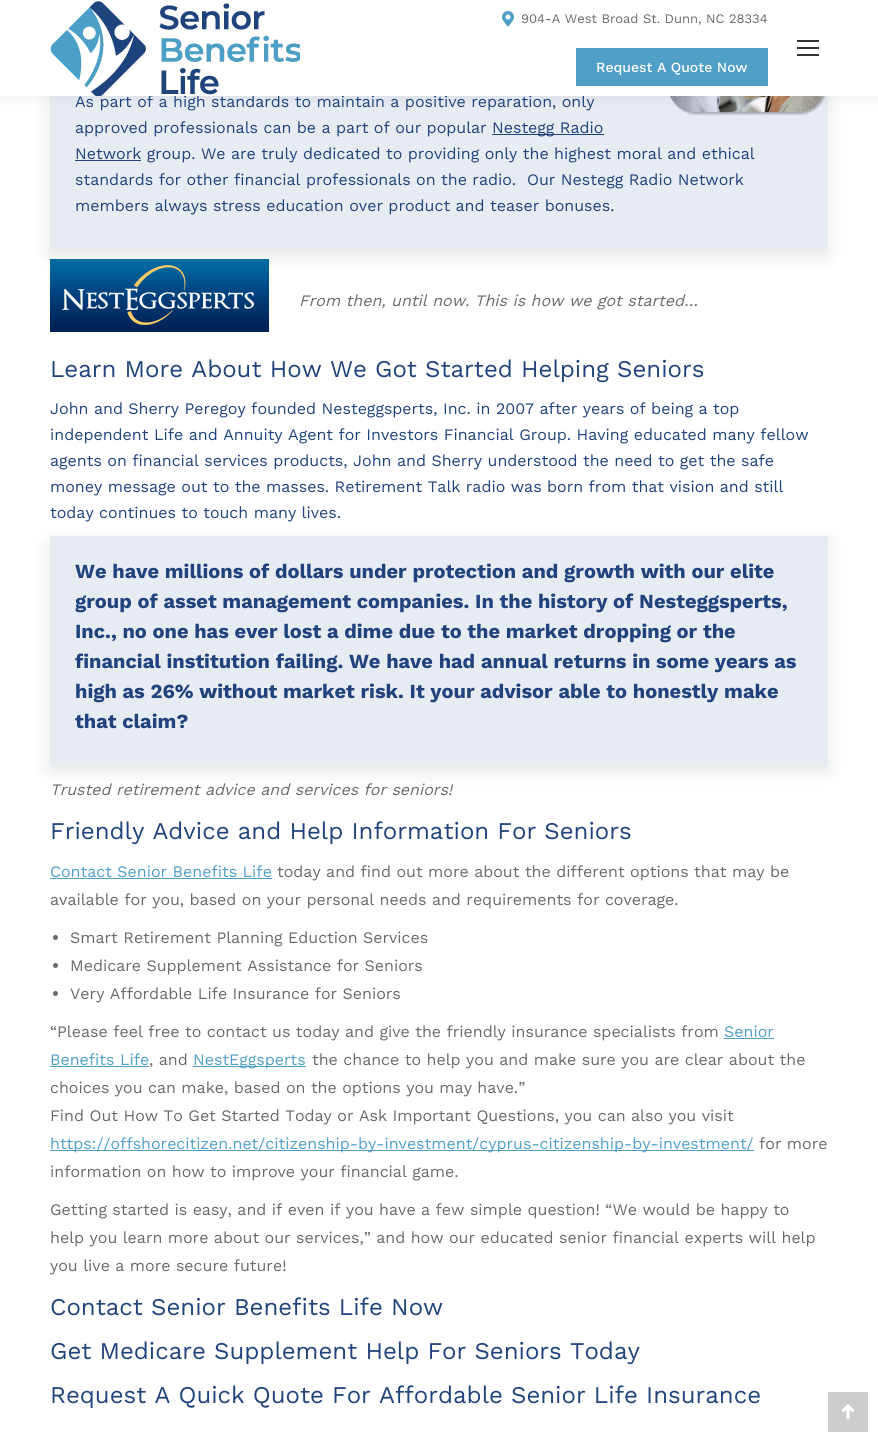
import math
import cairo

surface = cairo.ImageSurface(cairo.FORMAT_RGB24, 878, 1442)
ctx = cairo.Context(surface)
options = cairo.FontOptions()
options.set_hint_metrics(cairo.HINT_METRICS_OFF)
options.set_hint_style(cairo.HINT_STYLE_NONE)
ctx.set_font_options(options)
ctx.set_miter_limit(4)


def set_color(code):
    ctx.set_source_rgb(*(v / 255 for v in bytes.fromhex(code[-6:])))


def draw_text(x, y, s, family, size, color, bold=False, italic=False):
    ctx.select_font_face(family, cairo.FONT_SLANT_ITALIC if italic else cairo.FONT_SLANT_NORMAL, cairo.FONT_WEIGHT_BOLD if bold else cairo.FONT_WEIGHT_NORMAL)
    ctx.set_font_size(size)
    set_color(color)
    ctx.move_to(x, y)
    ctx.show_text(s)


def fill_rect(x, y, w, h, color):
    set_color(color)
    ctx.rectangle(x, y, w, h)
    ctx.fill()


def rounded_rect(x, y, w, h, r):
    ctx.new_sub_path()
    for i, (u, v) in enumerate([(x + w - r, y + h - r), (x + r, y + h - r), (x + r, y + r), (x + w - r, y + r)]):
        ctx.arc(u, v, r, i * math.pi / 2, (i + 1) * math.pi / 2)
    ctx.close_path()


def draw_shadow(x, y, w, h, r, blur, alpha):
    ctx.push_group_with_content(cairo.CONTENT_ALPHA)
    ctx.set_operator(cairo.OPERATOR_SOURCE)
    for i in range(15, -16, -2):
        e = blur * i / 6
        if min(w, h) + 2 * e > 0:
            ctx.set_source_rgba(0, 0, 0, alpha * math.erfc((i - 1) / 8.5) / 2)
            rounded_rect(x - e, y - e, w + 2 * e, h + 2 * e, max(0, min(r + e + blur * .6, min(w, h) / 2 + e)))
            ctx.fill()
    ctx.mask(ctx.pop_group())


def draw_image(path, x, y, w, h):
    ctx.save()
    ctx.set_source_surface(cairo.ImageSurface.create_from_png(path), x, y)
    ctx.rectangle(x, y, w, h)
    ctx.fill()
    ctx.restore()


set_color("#ffffff")
ctx.paint()
set_color("#000000")
draw_shadow(50, 75, 778, 180, 0, 9, 0.1)
fill_rect(50, 96, 778, 153, "#e7ebf2")
draw_image("assets/img4.png", 670, 96, 156, 20)
set_color("#000000")
draw_shadow(-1, -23, 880, 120, 0, 7.5, 0.07)
draw_text(75, 107, "As part of a high standards to maintain a positive reparation, only", "Work Sans", 16, "#20437d")
fill_rect(0, 0, 878, 96, "#ffffff")
draw_image("assets/img1.png", 50, 1, 250, 95)
draw_image("assets/img2.png", 502, 11, 12, 16)
draw_text(521, 23, "904-A West Broad St. Dunn, NC 28334", "Work Sans", 13, "#6a6a6a")
fill_rect(576, 48, 192, 38, "#4f9fc7")
draw_text(596, 72, "Request A Quote Now", "Work Sans Medium", 14, "#ffffff")
fill_rect(797, 40, 22, 2, "#333333")
fill_rect(797, 47, 22, 2, "#333333")
fill_rect(797, 54, 22, 2, "#333333")
draw_text(75, 133, "approved professionals can be a part of our popular", "Work Sans", 16, "#20437d")
fill_rect(492, 134, 112, 1, "#20437d")
draw_text(492, 133, "Nestegg Radio", "Work Sans", 16, "#20437d")
fill_rect(75, 160, 66, 1, "#20437d")
draw_text(75, 159, "Network group. We are truly dedicated to providing only the highest moral and ethical", "Work Sans", 16, "#20437d")
draw_text(75, 185, "standards for other financial professionals on the radio.  Our Nestegg Radio Network", "Work Sans", 16, "#20437d")
draw_text(75, 211, "members always stress education over product and teaser bonuses.", "Work Sans", 16, "#20437d")
draw_image("assets/img3.png", 50, 259, 219, 73)
draw_text(299, 306, "From then, until now. This is how we got started…", "Work Sans", 16, "#6a6a6a", italic=True)
draw_text(50, 377, "Learn More About How We Got Started Helping Seniors", "Work Sans", 24, "#20437d")
draw_text(50, 414, "John and Sherry Peregoy founded Nesteggsperts, Inc. in 2007 after years of being a top", "Work Sans", 16, "#20437d")
draw_text(50, 440, "independent Life and Annuity Agent for Investors Financial Group. Having educated many fellow", "Work Sans", 16, "#20437d")
draw_text(50, 466, "agents on financial services products, John and Sherry understood the need to get the safe", "Work Sans", 16, "#20437d")
draw_text(50, 492, "money message out to the masses. Retirement Talk radio was born from that vision and still", "Work Sans", 16, "#20437d")
set_color("#000000")
draw_shadow(50, 542, 778, 230, 0, 9, 0.1)
draw_text(50, 518, "today continues to touch many lives.", "Work Sans", 16, "#20437d")
fill_rect(50, 536, 778, 230, "#e7ebf2")
draw_text(75, 578, "We have millions of dollars under protection and growth with our elite", "Work Sans", 20, "#20437d", bold=True)
draw_text(75, 608, "group of asset management companies. In the history of Nesteggsperts,", "Work Sans", 20, "#20437d", bold=True)
draw_text(75, 638, "Inc., no one has ever lost a dime due to the market dropping or the", "Work Sans", 20, "#20437d", bold=True)
draw_text(75, 668, "financial institution failing. We have had annual returns in some years as", "Work Sans", 20, "#20437d", bold=True)
draw_text(75, 698, "high as 26% without market risk. It your advisor able to honestly make", "Work Sans", 20, "#20437d", bold=True)
draw_text(75, 728, "that claim?", "Work Sans", 20, "#20437d", bold=True)
draw_text(50, 795, "Trusted retirement advice and services for seniors!", "Work Sans", 16, "#6a6a6a", italic=True)
draw_text(50, 839, "Friendly Advice and Help Information For Seniors", "Work Sans", 24, "#20437d")
draw_text(50, 877, "Contact Senior Benefits Life", "Work Sans", 16, "#4f9fc7")
fill_rect(50, 878, 222, 1, "#4f9fc7")
draw_text(277, 877, "today and find out more about the different options that may be", "Work Sans", 16, "#6a6a6a")
draw_text(50, 905, "available for you, based on your personal needs and requirements for coverage.", "Work Sans", 16, "#6a6a6a")
ctx.new_path()
ctx.arc(55.5, 937.5, 2.5, 0, 2 * math.pi)
ctx.fill()
draw_text(70, 943, "Smart Retirement Planning Eduction Services", "Work Sans", 16, "#6a6a6a")
ctx.new_path()
ctx.arc(55.5, 965.5, 2.5, 0, 2 * math.pi)
ctx.fill()
draw_text(70, 971, "Medicare Supplement Assistance for Seniors", "Work Sans", 16, "#6a6a6a")
ctx.new_path()
ctx.arc(55.5, 993.5, 2.5, 0, 2 * math.pi)
ctx.fill()
draw_text(70, 999, "Very Affordable Life Insurance for Seniors", "Work Sans", 16, "#6a6a6a")
draw_text(50, 1037, "“Please feel free to contact us today and give the friendly insurance specialists from", "Work Sans", 16, "#6a6a6a")
draw_text(724, 1037, "Senior", "Work Sans", 16, "#4f9fc7")
fill_rect(724, 1038, 50, 1, "#4f9fc7")
draw_text(50, 1065, "Benefits Life", "Work Sans", 16, "#4f9fc7")
fill_rect(50, 1066, 99, 1, "#4f9fc7")
draw_text(149, 1065, ", and", "Work Sans", 16, "#6a6a6a")
fill_rect(193, 1066, 113, 1, "#4f9fc7")
draw_text(193, 1065, "NestEggsperts", "Work Sans", 16, "#4f9fc7")
draw_text(312, 1065, "the chance to help you and make sure you are clear about the", "Work Sans", 16, "#6a6a6a")
draw_text(50, 1093, "choices you can make, based on the options you may have.”", "Work Sans", 16, "#6a6a6a")
draw_text(50, 1121, "Find Out How To Get Started Today or Ask Important Questions, you can also you visit", "Work Sans", 16, "#6a6a6a")
fill_rect(50, 1150, 704, 1, "#4f9fc7")
draw_text(50, 1149, "https://offshorecitizen.net/citizenship-by-investment/cyprus-citizenship-by-investment/", "Work Sans", 16, "#4f9fc7")
draw_text(759, 1149, "for more", "Work Sans", 16, "#6a6a6a")
draw_text(50, 1177, "information on how to improve your financial game.", "Work Sans", 16, "#6a6a6a")
draw_text(50, 1215, "Getting started is easy, and if even if you have a few simple question! “We would be happy to", "Work Sans", 16, "#6a6a6a")
draw_text(50, 1243, "help you learn more about our services,” and how our educated senior financial experts will help", "Work Sans", 16, "#6a6a6a")
draw_text(50, 1271, "you live a more secure future!", "Work Sans", 16, "#6a6a6a")
draw_text(50, 1315, "Contact Senior Benefits Life Now", "Work Sans", 24, "#20437d")
draw_text(50, 1359, "Get Medicare Supplement Help For Seniors Today", "Work Sans", 24, "#20437d")
draw_text(50, 1403, "Request A Quick Quote For Affordable Senior Life Insurance", "Work Sans", 24, "#20437d")
fill_rect(828, 1392, 40, 40, "#cccccc")
draw_image("assets/img5.png", 842, 1404, 12, 16)
surface.write_to_png("output.png")
